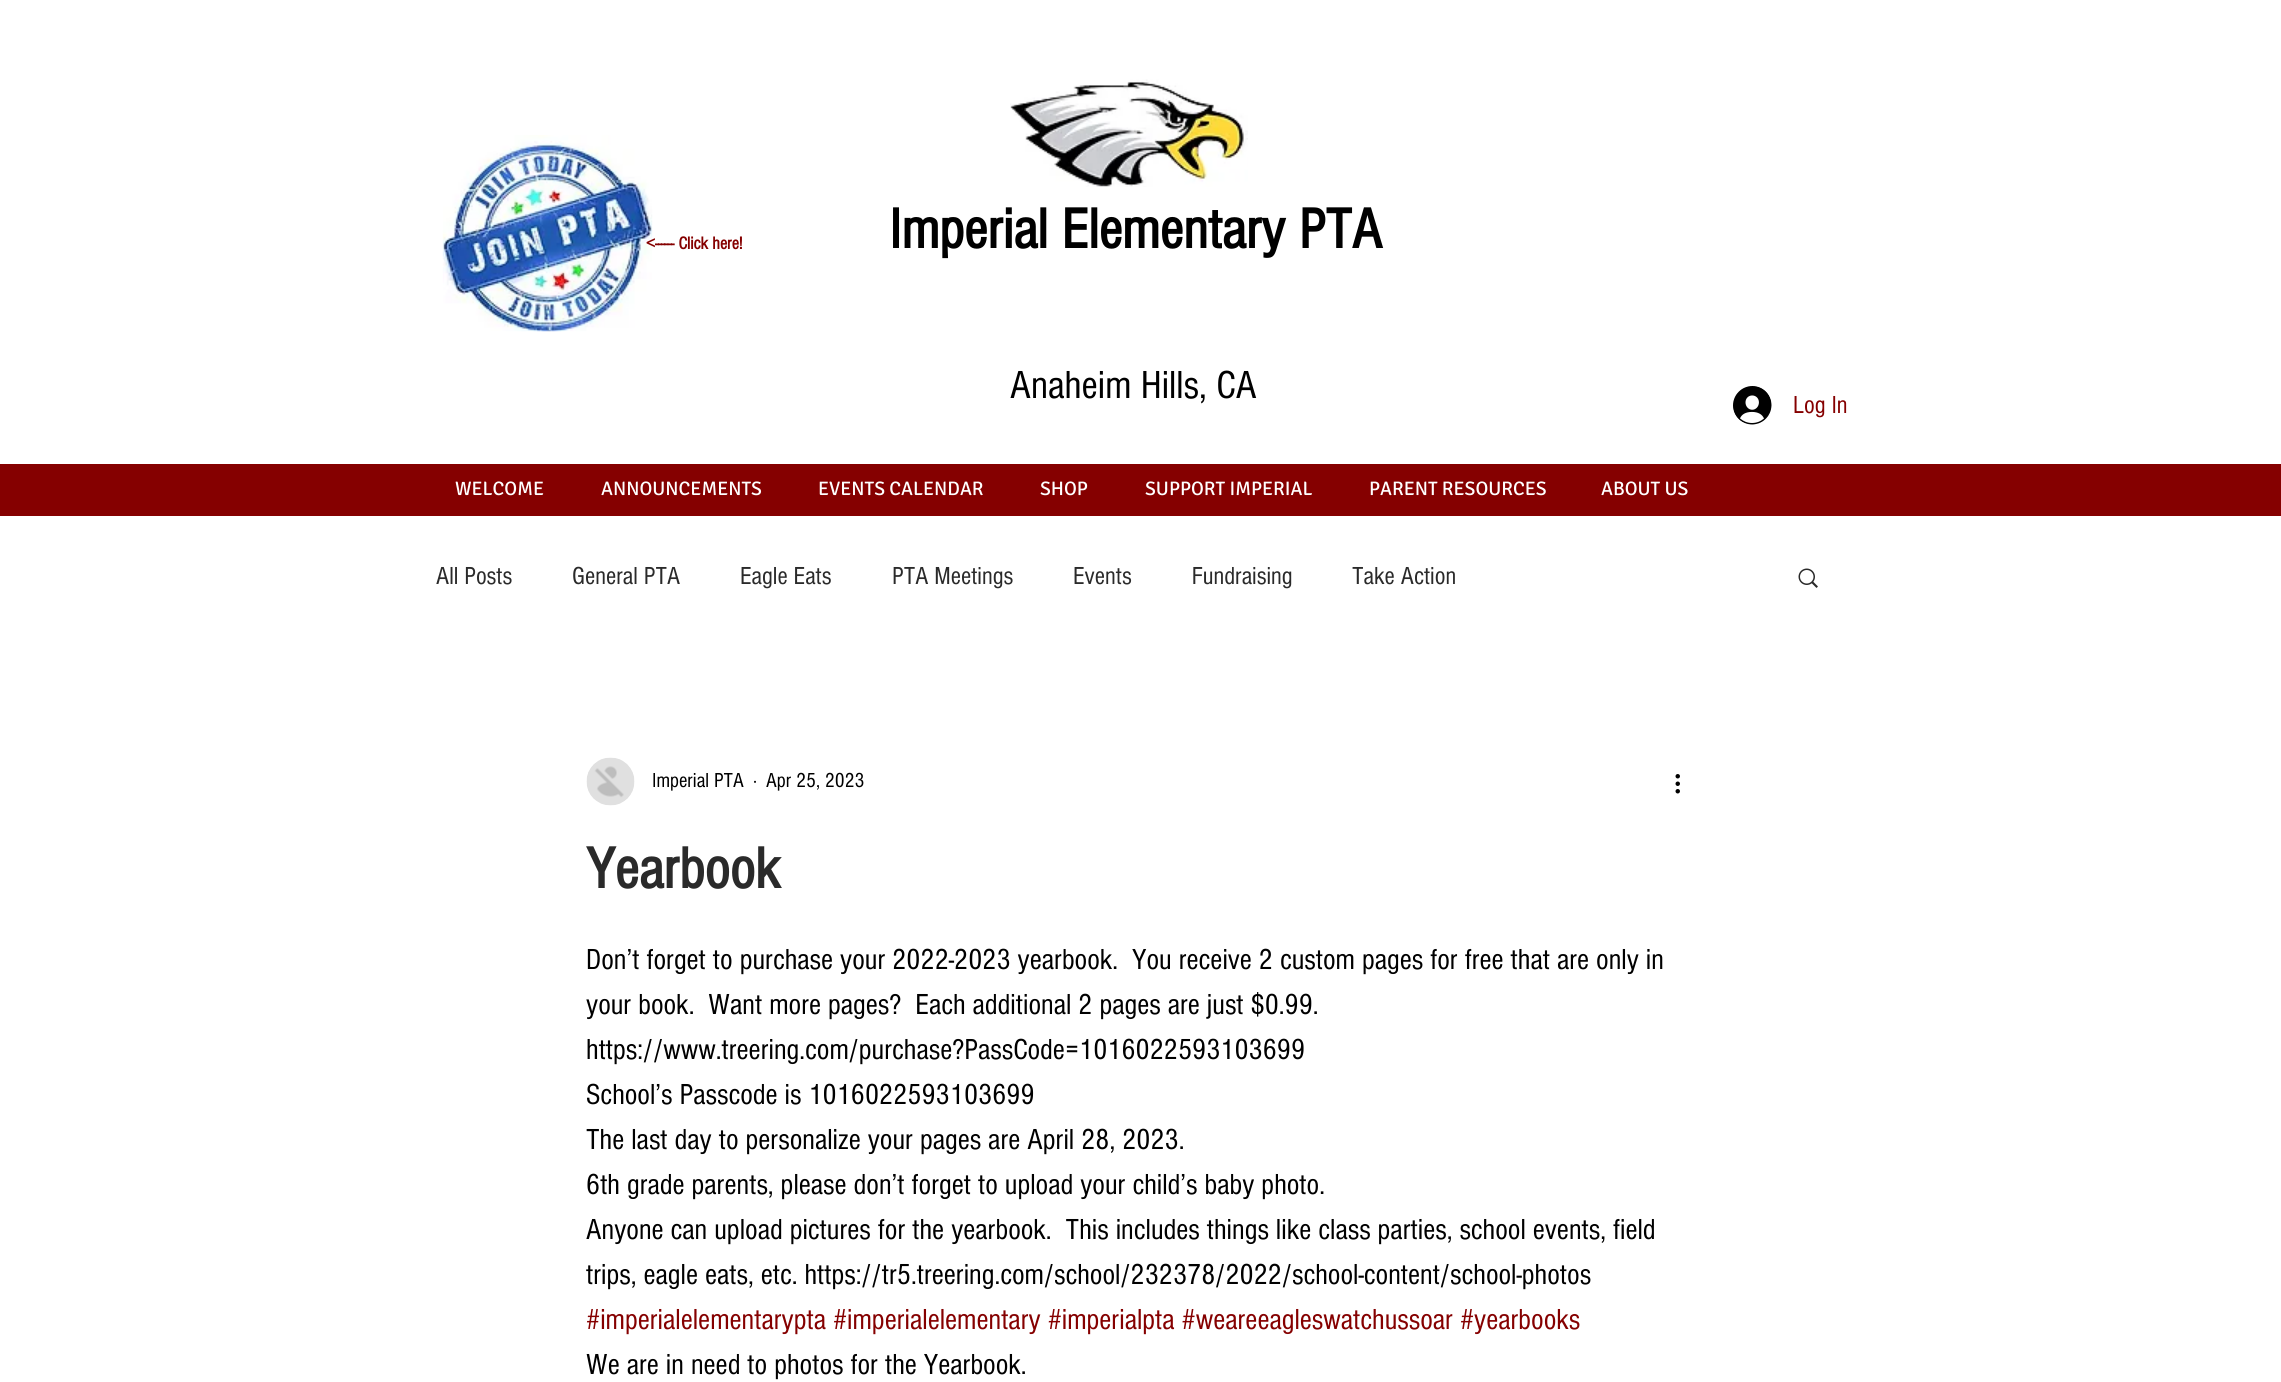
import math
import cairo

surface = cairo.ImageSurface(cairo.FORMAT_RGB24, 2281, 1382)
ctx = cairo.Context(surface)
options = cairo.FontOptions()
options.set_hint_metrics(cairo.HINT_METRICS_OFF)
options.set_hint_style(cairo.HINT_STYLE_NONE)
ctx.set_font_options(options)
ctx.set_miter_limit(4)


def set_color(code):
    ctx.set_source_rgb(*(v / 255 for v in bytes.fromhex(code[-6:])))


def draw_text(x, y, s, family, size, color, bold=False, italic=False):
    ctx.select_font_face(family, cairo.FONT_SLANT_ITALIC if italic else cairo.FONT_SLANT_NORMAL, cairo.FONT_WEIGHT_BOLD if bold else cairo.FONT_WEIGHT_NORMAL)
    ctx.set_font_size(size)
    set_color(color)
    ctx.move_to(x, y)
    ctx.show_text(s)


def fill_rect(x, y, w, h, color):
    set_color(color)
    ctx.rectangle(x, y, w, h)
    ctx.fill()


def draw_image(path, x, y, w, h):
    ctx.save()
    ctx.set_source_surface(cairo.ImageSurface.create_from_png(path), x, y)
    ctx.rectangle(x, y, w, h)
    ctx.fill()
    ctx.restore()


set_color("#ffffff")
ctx.paint()
draw_image("assets/img1.png", 442, 135, 211, 197)
draw_image("assets/img2.png", 1010, 79, 238, 108)
draw_text(646, 249, "<------ Click here!", "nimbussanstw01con", 18, "#850000", bold=True)
draw_text(889, 248, "Imperial Elementary PTA", "nimbussanstw01con", 58.5, "#000000", bold=True)
draw_text(1010, 398, "Anaheim Hills, CA", "nimbussanstw01con", 40.5, "#000000")
draw_image("assets/img3.png", 1733, 386, 39, 39)
draw_text(1793, 413, "Log In", "nimbussanstw01con", 25.5, "#850000")
fill_rect(0, 464, 2281, 52, "#850000")
draw_text(455, 495, "WELCOME", "Signika", 19.5, "#ffffff")
draw_text(601, 495, "ANNOUNCEMENTS", "Signika", 19.5, "#ffffff")
draw_text(818, 495, "EVENTS CALENDAR", "Signika", 19.5, "#ffffff")
draw_text(1040, 495, "SHOP", "Signika", 19.5, "#ffffff")
draw_text(1145, 495, "SUPPORT IMPERIAL", "Signika", 19.5, "#ffffff")
draw_text(1369, 495, "PARENT RESOURCES", "Signika", 19.5, "#ffffff")
draw_text(1601, 495, "ABOUT US", "Signika", 19.5, "#ffffff")
draw_text(436, 584, "All Posts", "nimbussanstw01con", 25.5, "#2a2a2a")
draw_text(572, 584, "General PTA", "nimbussanstw01con", 25.5, "#2a2a2a")
draw_text(740, 584, "Eagle Eats", "nimbussanstw01con", 25.5, "#2a2a2a")
draw_text(892, 584, "PTA Meetings", "nimbussanstw01con", 25.5, "#2a2a2a")
draw_text(1073, 584, "Events", "nimbussanstw01con", 25.5, "#2a2a2a")
draw_text(1192, 584, "Fundraising", "nimbussanstw01con", 25.5, "#2a2a2a")
draw_text(1352, 584, "Take Action", "nimbussanstw01con", 25.5, "#2a2a2a")
draw_image("assets/img4.png", 1798, 568, 20, 20)
draw_image("assets/img5.png", 586, 757, 49, 49)
draw_text(652, 787, "Imperial PTA", "nimbussanstw01con", 21, "#000000")
draw_text(753, 787, "·", "nimbussanstw01con", 21, "#000000")
draw_text(766, 787, "Apr 25, 2023", "nimbussanstw01con", 21, "#000000")
draw_image("assets/img6.png", 1675, 774, 5, 20)
draw_text(586, 888, "Yearbook", "nimbussanstw01con", 60, "#2a2a2a", bold=True)
draw_text(586, 969, "Don’t forget to purchase your 2022-2023 yearbook.  You receive 2 custom pages for free that are only in", "nimbussanstw01con", 30, "#000000")
draw_text(586, 1014, "your book.  Want more pages?  Each additional 2 pages are just $0.99.", "nimbussanstw01con", 30, "#000000")
draw_text(586, 1059, "https://www.treering.com/purchase?PassCode=1016022593103699", "nimbussanstw01con", 30, "#000000")
draw_text(586, 1104, "School’s Passcode is 1016022593103699", "nimbussanstw01con", 30, "#000000")
draw_text(586, 1149, "The last day to personalize your pages are April 28, 2023.", "nimbussanstw01con", 30, "#000000")
draw_text(586, 1194, "6th grade parents, please don’t forget to upload your child’s baby photo.", "nimbussanstw01con", 30, "#000000")
draw_text(586, 1239, "Anyone can upload pictures for the yearbook.  This includes things like class parties, school events, field", "nimbussanstw01con", 30, "#000000")
draw_text(586, 1284, "trips, eagle eats, etc. https://tr5.treering.com/school/232378/2022/school-content/school-photos", "nimbussanstw01con", 30, "#000000")
draw_text(586, 1329, "#imperialelementarypta #imperialelementary #imperialpta #weareeagleswatchussoar #yearbooks", "nimbussanstw01con", 30, "#850000")
draw_text(586, 1374, "We are in need to photos for the Yearbook.", "nimbussanstw01con", 30, "#000000")
surface.write_to_png("output.png")
